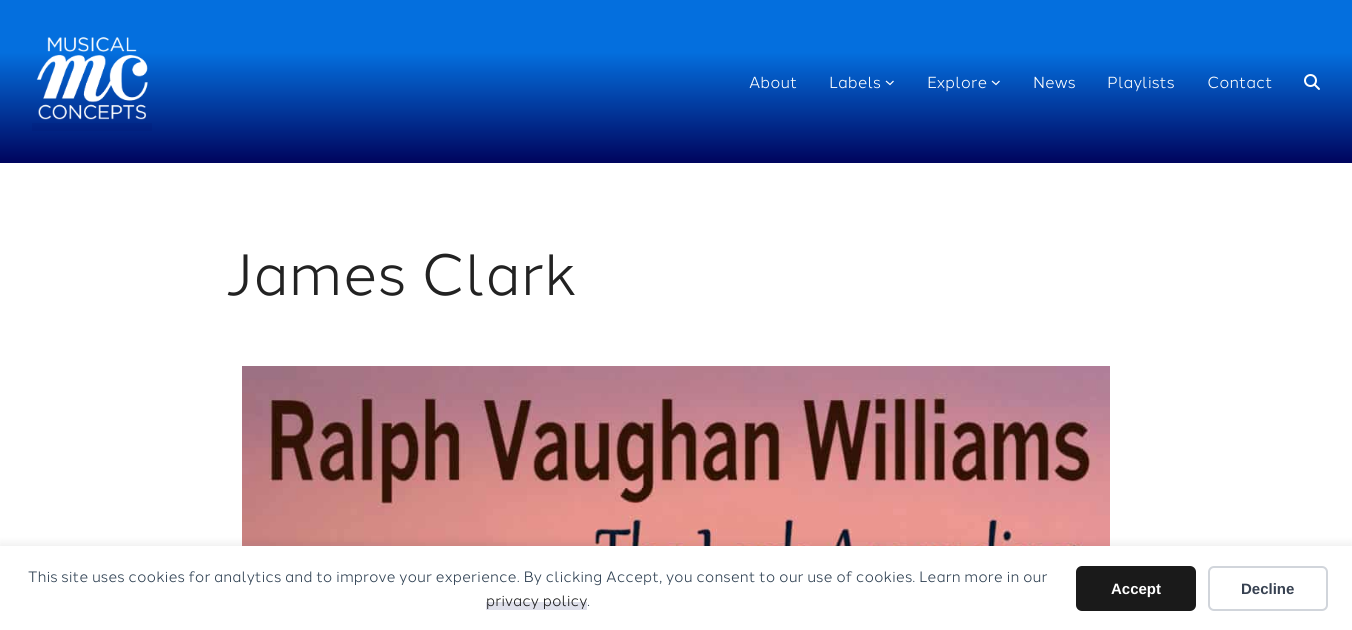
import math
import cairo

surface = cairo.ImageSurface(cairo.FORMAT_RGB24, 1352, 630)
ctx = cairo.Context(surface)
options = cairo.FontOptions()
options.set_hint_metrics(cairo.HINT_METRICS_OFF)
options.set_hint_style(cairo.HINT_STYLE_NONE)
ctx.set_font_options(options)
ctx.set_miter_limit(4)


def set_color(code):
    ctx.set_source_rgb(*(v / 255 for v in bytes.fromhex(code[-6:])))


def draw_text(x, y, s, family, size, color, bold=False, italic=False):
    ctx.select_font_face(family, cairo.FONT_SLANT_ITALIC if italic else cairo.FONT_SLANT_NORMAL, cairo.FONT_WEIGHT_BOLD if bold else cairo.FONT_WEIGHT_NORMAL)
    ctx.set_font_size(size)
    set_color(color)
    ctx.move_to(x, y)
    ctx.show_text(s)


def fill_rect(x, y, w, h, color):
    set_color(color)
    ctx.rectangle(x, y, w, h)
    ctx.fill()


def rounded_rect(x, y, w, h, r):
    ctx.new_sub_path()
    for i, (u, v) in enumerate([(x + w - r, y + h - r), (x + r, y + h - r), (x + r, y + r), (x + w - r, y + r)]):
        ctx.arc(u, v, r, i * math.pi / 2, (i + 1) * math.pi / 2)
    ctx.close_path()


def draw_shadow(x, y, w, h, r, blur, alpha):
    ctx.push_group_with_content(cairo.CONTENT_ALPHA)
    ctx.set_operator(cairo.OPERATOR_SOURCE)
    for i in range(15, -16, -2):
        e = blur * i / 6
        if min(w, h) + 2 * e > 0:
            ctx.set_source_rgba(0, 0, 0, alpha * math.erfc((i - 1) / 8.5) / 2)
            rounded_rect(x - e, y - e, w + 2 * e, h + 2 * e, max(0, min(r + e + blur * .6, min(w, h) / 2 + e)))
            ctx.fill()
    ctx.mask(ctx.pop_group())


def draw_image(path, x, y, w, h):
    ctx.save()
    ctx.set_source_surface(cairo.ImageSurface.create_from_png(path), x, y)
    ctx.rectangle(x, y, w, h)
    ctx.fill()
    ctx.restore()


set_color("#ffffff")
ctx.paint()
gradient = cairo.LinearGradient(676, 0, 676, 163)
gradient.add_color_stop_rgba(0.32, 0.016, 0.435, 0.871, 1)
gradient.add_color_stop_rgba(1, 0, 0.016, 0.365, 1)
ctx.set_source(gradient)
ctx.rectangle(0, 0, 1352, 163)
ctx.fill()
gradient = cairo.LinearGradient(676, 0, 676, 163)
gradient.add_color_stop_rgba(0.32, 0.016, 0.384, 0.812, 1)
gradient.add_color_stop_rgba(1, 0, 0.016, 0.365, 1)
ctx.set_source(gradient)
ctx.rectangle(32, 123, 120, 8)
ctx.fill()
draw_image("assets/img1.png", 36, 37, 112, 83)
draw_text(749, 88, "About", "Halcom", 16, "#ffffff")
draw_text(829, 88, "Labels", "Halcom", 16, "#ffffff")
ctx.new_path()
ctx.move_to(886, 81)
ctx.line_to(890, 84.5)
ctx.line_to(893.5, 81)
ctx.set_line_width(1.2)
ctx.stroke()
draw_text(927, 88, "Explore", "Halcom", 16, "#ffffff")
ctx.new_path()
ctx.move_to(992, 81)
ctx.line_to(996, 84.5)
ctx.line_to(999.5, 81)
ctx.stroke()
draw_text(1033, 88, "News", "Halcom", 16, "#ffffff")
draw_text(1107, 88, "Playlists", "Halcom", 16, "#ffffff")
draw_text(1207, 88, "Contact", "Halcom", 16, "#ffffff")
draw_image("assets/img2.png", 1304, 74, 16, 16)
draw_text(226, 295, "James Clark", "Halcom", 58, "#222222")
draw_image("assets/img3.png", 242, 366, 868, 180)
set_color("#000000")
draw_shadow(0, 544, 1352, 84, 0, 5, 0.08)
fill_rect(0, 546, 1352, 84, "#ffffff")
draw_text(28, 582, "This site uses cookies for analytics and to improve your experience. By clicking Accept, you consent to our use of cookies. Learn more in our", "Halcom", 15, "#2c3e50")
fill_rect(486, 602, 101, 8, "#dfe0eb")
draw_text(486, 606, "privacy policy", "Halcom", 15, "#1a1a1a")
draw_text(587, 606, ".", "Halcom", 15, "#2c3e50")
set_color("#1a1a1a")
rounded_rect(1076, 566, 120, 45, 6)
ctx.fill()
draw_text(1111, 594, "Accept", "Liberation Sans", 15, "#ffffff", bold=True)
rounded_rect(1209, 567, 118, 43, 5)
set_color("#d1d5db")
ctx.set_line_width(2)
ctx.stroke()
draw_text(1241, 594, "Decline", "Liberation Sans", 15, "#374151", bold=True)
surface.write_to_png("output.png")
